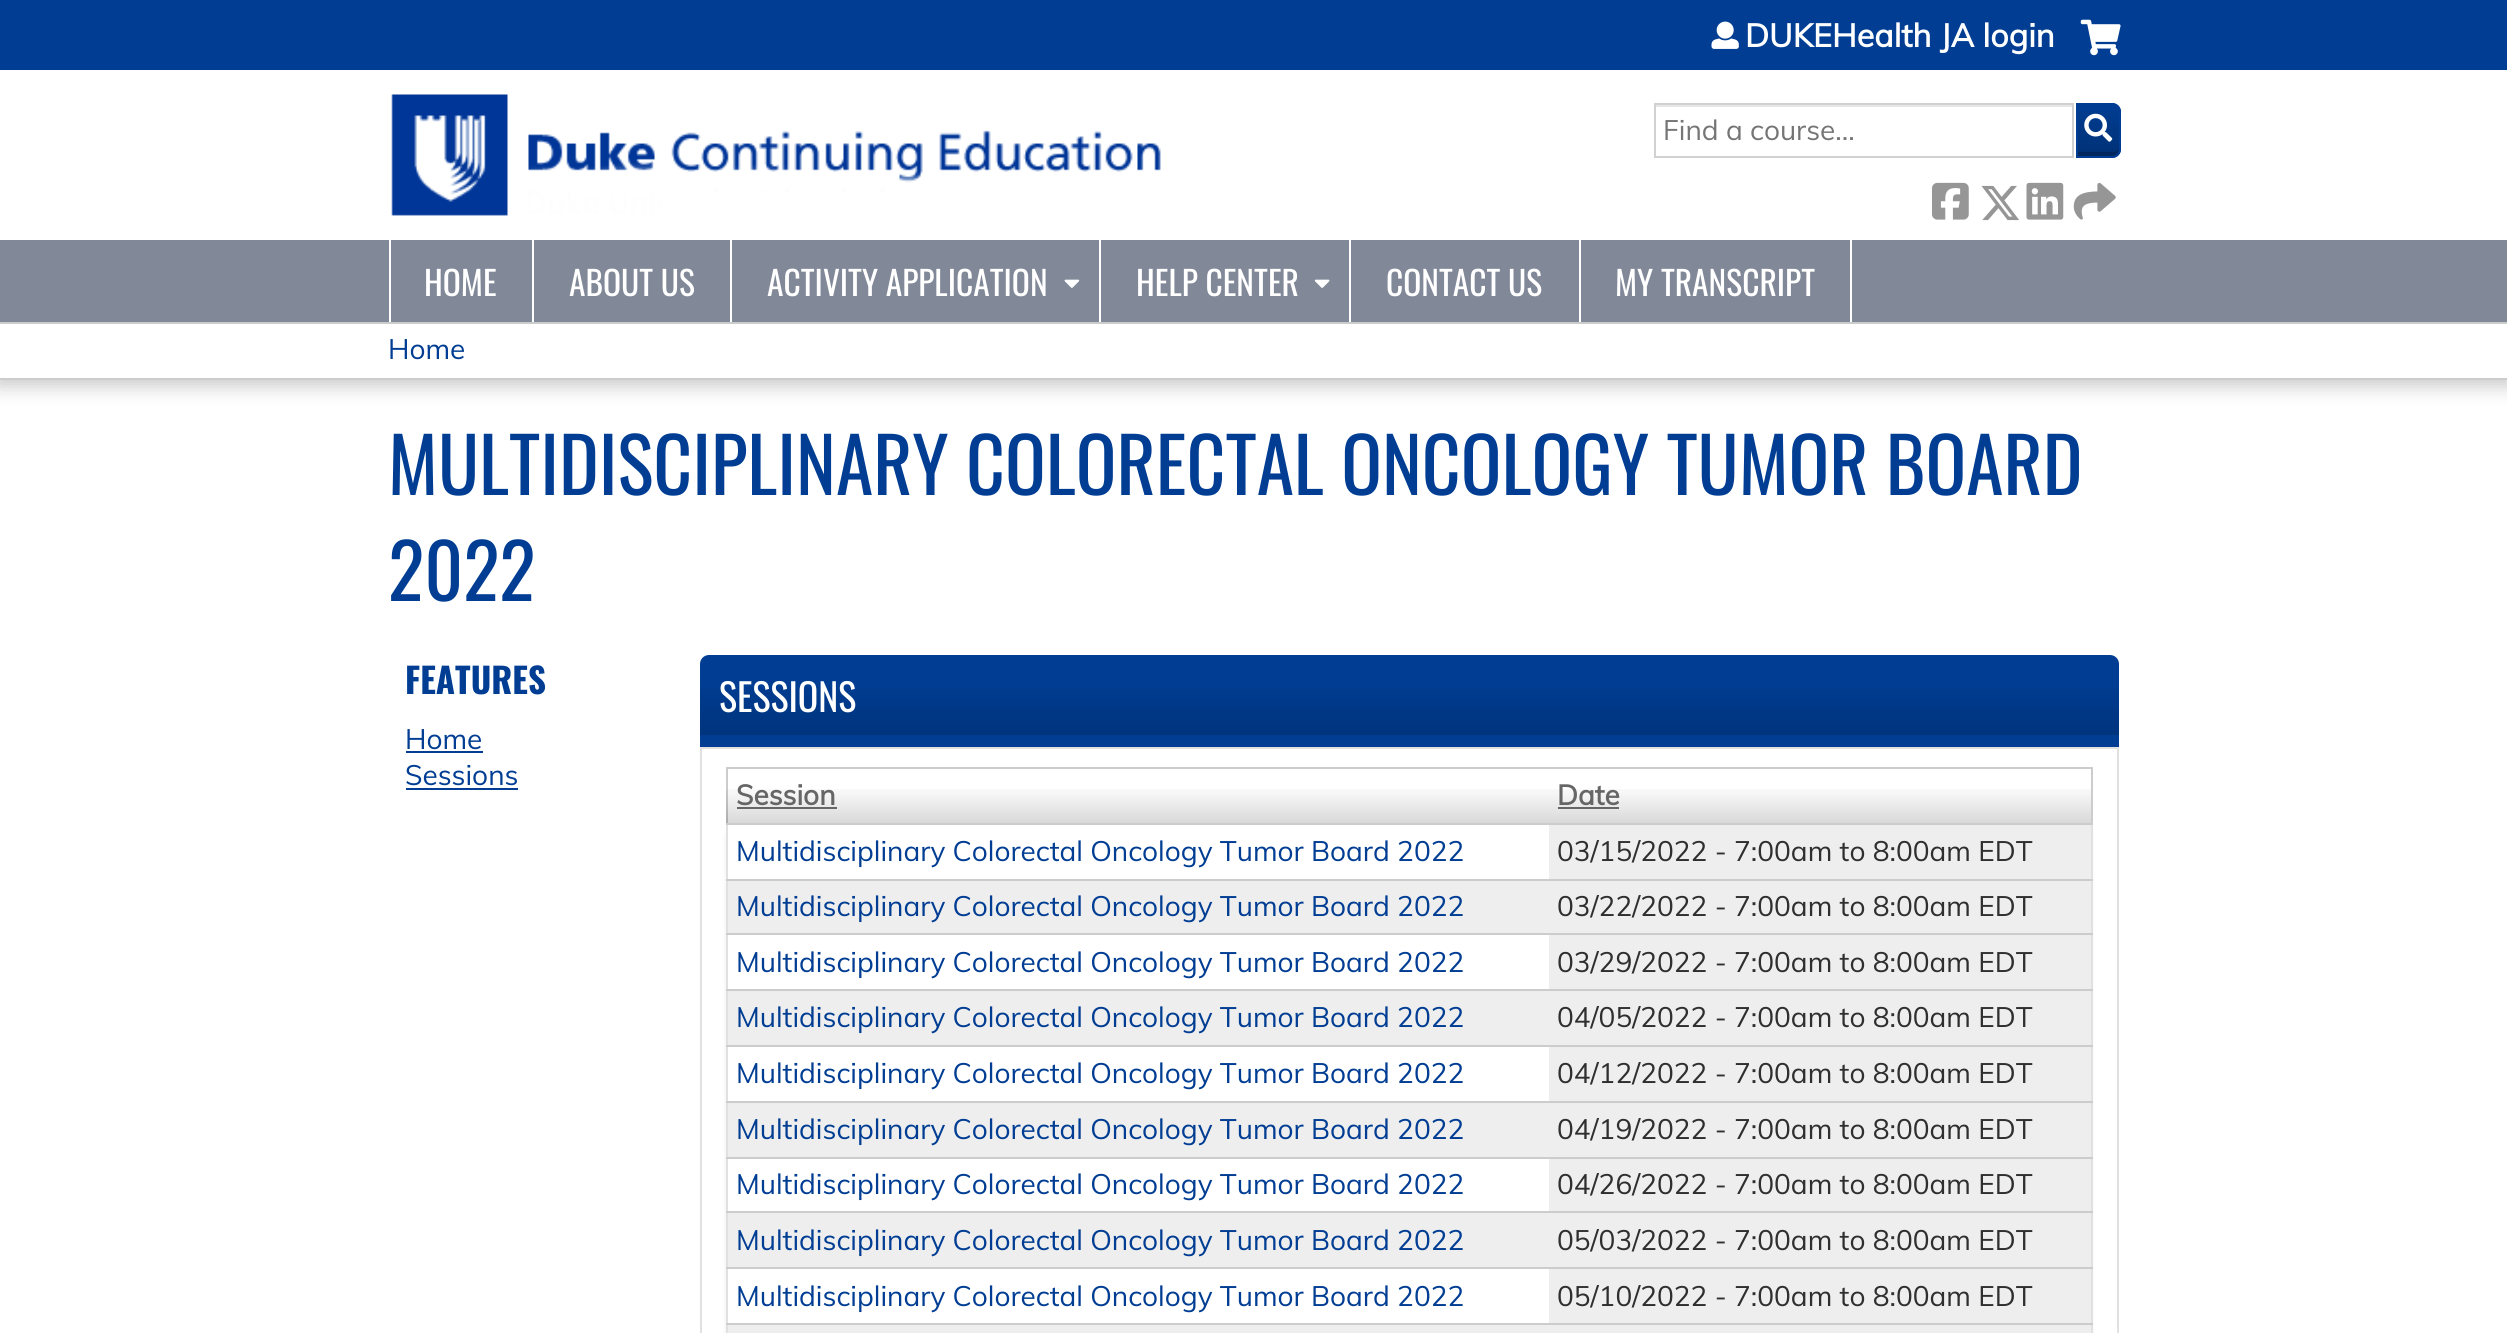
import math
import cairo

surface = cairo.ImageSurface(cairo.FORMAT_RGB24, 2507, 1333)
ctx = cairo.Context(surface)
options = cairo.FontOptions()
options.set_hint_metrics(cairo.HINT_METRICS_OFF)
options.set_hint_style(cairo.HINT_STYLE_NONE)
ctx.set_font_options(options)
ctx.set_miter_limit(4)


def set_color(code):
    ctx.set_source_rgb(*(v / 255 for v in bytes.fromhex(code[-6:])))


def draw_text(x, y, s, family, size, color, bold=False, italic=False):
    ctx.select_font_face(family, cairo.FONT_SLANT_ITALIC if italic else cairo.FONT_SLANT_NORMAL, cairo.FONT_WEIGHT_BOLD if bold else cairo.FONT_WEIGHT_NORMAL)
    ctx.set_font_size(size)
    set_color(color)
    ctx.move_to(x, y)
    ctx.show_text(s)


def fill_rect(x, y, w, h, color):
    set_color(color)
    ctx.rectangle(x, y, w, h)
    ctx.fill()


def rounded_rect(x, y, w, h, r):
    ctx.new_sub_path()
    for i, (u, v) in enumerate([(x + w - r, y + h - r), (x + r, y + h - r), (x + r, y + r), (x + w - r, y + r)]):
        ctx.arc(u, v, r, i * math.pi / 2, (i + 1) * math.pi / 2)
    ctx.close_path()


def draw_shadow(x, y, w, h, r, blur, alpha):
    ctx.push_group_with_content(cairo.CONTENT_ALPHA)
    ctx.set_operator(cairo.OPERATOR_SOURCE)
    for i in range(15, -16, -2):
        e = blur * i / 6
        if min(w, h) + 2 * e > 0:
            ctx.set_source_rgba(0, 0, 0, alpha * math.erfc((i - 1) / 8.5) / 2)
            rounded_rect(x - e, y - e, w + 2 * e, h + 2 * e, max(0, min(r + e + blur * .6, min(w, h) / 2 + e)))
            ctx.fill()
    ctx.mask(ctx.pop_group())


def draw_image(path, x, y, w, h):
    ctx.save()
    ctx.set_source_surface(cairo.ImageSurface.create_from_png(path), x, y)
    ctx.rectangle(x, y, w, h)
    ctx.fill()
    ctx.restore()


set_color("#ffffff")
ctx.paint()
fill_rect(0, 0, 2507, 70, "#003d93")
draw_image("assets/img1.png", 1711, 21, 28, 28)
draw_text(1745, 47, "DUKEHealth JA login", "Muli", 32.25, "#ffffff", bold=True)
draw_image("assets/img2.png", 2080, 19, 41, 37)
set_color("#003d93")
ctx.new_path()
ctx.move_to(2076, 103)
ctx.line_to(2112, 103)
ctx.curve_to(2117, 103, 2121, 107, 2121, 112)
ctx.line_to(2121, 149)
ctx.curve_to(2121, 154, 2117, 158, 2112, 158)
ctx.line_to(2076, 158)
ctx.close_path()
ctx.fill()
ctx.save()
ctx.new_path()
ctx.move_to(2076, 103)
ctx.line_to(2112, 103)
ctx.curve_to(2117, 103, 2121, 107, 2121, 112)
ctx.line_to(2121, 149)
ctx.curve_to(2121, 154, 2117, 158, 2112, 158)
ctx.line_to(2076, 158)
ctx.close_path()
ctx.clip()
gradient = cairo.LinearGradient(2098, 156, 2098, 105)
gradient.add_color_stop_rgba(0, 0, 0, 0, 0.2)
gradient.add_color_stop_rgba(1, 0, 0, 0, 0)
ctx.set_source(gradient)
ctx.rectangle(2078, 110, 43, 46)
ctx.fill()
ctx.restore()
ctx.set_source_rgba(0, 0, 0, 0.2)
ctx.new_path()
ctx.move_to(2077, 152)
ctx.line_to(2077, 156)
ctx.line_to(2100, 156)
ctx.curve_to(2106, 156, 2119, 159, 2119, 149)
ctx.curve_to(2117, 151, 2115, 152, 2112, 152)
ctx.close_path()
ctx.fill()
ctx.new_path()
ctx.move_to(2077, 104)
ctx.line_to(2112, 104)
ctx.curve_to(2116.5, 104, 2120, 107.5, 2120, 112)
ctx.line_to(2120, 149)
ctx.curve_to(2120, 153.5, 2116.5, 157, 2112, 157)
ctx.line_to(2077, 157)
ctx.close_path()
set_color("#003d93")
ctx.stroke()
fill_rect(1656, 105, 416, 2, "#e6e6e6")
ctx.rectangle(1655, 104, 418, 53)
set_color("#d1d1d1")
ctx.stroke()
draw_text(1663, 140, "Find a course...", "Muli", 28, "#757575")
draw_image("assets/img3.png", 2084, 113, 29, 29)
draw_image("assets/img4.png", 1932, 182, 37, 38)
draw_image("assets/img5.png", 1981, 185, 38, 36)
draw_image("assets/img6.png", 2026, 182, 38, 38)
draw_image("assets/img7.png", 2073, 182, 43, 38)
draw_image("assets/img8.png", 391, 94, 770, 122)
set_color("#000000")
draw_shadow(-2, 326, 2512, 61, 0, 9, 0.2)
fill_rect(0, 240, 2507, 82, "#818898")
fill_rect(532, 240, 2, 82, "#ffffff")
fill_rect(389, 240, 2, 82, "#ffffff")
draw_text(424, 296, "HOME", "Oswald", 33.5, "#ffffff")
fill_rect(730, 240, 2, 82, "#ffffff")
draw_text(569, 296, "ABOUT US", "Oswald", 33.5, "#ffffff")
fill_rect(1099, 240, 2, 82, "#ffffff")
draw_text(767, 296, "ACTIVITY APPLICATION", "Oswald", 33.5, "#ffffff")
draw_image("assets/img9.png", 1064, 279, 16, 9)
fill_rect(1349, 240, 2, 82, "#ffffff")
draw_text(1136, 296, "HELP CENTER", "Oswald", 33.5, "#ffffff")
draw_image("assets/img10.png", 1314, 279, 16, 9)
fill_rect(1579, 240, 2, 82, "#ffffff")
draw_text(1386, 296, "CONTACT US", "Oswald", 33.5, "#ffffff")
fill_rect(1850, 240, 2, 82, "#ffffff")
draw_text(1615, 296, "MY TRANSCRIPT", "Oswald", 33.5, "#ffffff")
fill_rect(0, 324, 2507, 54, "#ffffff")
fill_rect(0, 322, 2507, 2, "#cccccc")
fill_rect(0, 378, 2507, 2, "#cccccc")
draw_text(388, 359, "Home", "Muli", 28, "#003d93")
draw_text(388, 495, "MULTIDISCIPLINARY COLORECTAL ONCOLOGY TUMOR BOARD", "Oswald", 75.6, "#003d93")
draw_text(388, 601, "2022", "Oswald", 75.6, "#003d93")
draw_text(405, 694, "FEATURES", "Oswald", 35, "#003d93", bold=True)
draw_text(405, 749, "Home", "Muli", 28, "#003d93")
fill_rect(406, 751, 77, 2, "#003d93")
draw_text(405, 785, "Sessions", "Muli", 28, "#003d93")
fill_rect(406, 788, 112, 2, "#003d93")
ctx.new_path()
ctx.move_to(709, 655)
ctx.line_to(2110, 655)
ctx.curve_to(2115, 655, 2119, 659, 2119, 664)
ctx.line_to(2119, 747)
ctx.line_to(700, 747)
ctx.line_to(700, 664)
ctx.curve_to(700, 659, 704, 655, 709, 655)
ctx.close_path()
ctx.fill()
gradient = cairo.LinearGradient(1410, 735, 1410, 655)
gradient.add_color_stop_rgba(0, 0, 0, 0, 0.15)
gradient.add_color_stop_rgba(0.7, 0, 0, 0, 0)
ctx.set_source(gradient)
ctx.rectangle(700, 687, 1419, 48)
ctx.fill()
draw_text(719, 712, "SESSIONS", "Oswald", 38, "#ffffff")
ctx.rectangle(701, 748, 1417, 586)
set_color("#e1e1e1")
ctx.stroke()
fill_rect(726, 767, 1367, 2, "#cccccc")
set_color("#000000")
draw_shadow(730, 831, 1358, 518, 5, 3.5, 0.3)
fill_rect(2091, 823, 2, 510, "#e1e1e1")
fill_rect(2091, 767, 2, 57, "#cccccc")
fill_rect(726, 823, 2, 510, "#e1e1e1")
fill_rect(726, 823, 1367, 2, "#cccccc")
fill_rect(726, 767, 2, 57, "#cccccc")
gradient = cairo.LinearGradient(1138, 823, 1138, 767)
gradient.add_color_stop_rgba(0, 0, 0, 0, 0.15)
gradient.add_color_stop_rgba(0.7, 0, 0, 0, 0)
ctx.set_source(gradient)
ctx.rectangle(726, 789, 823, 34)
ctx.fill()
draw_text(736, 805, "Session", "Muli", 28, "#666666", bold=True)
fill_rect(737, 807, 100, 2, "#666666")
gradient = cairo.LinearGradient(1820, 823, 1820, 767)
gradient.add_color_stop_rgba(0, 0, 0, 0, 0.15)
gradient.add_color_stop_rgba(0.7, 0, 0, 0, 0)
ctx.set_source(gradient)
ctx.rectangle(1549, 789, 542, 34)
ctx.fill()
draw_text(1557, 805, "Date", "Muli", 28, "#666666", bold=True)
fill_rect(1558, 807, 61, 2, "#666666")
fill_rect(728, 825, 821, 54, "#ffffff")
draw_text(736, 861, "Multidisciplinary Colorectal Oncology Tumor Board 2022", "Muli", 28, "#003d93")
fill_rect(1549, 825, 542, 54, "#eeeeee")
draw_text(1557, 861, "03/15/2022 - 7:00am to 8:00am EDT", "Muli", 28, "#2f2f2f")
fill_rect(728, 881, 1362, 52, "#eeeeee")
fill_rect(726, 879, 1367, 2, "#cccccc")
draw_text(736, 916, "Multidisciplinary Colorectal Oncology Tumor Board 2022", "Muli", 28, "#003d93")
draw_text(1557, 916, "03/22/2022 - 7:00am to 8:00am EDT", "Muli", 28, "#2f2f2f")
fill_rect(728, 935, 821, 54, "#ffffff")
fill_rect(726, 933, 1367, 2, "#cccccc")
draw_text(736, 972, "Multidisciplinary Colorectal Oncology Tumor Board 2022", "Muli", 28, "#003d93")
fill_rect(1549, 935, 541, 54, "#eeeeee")
draw_text(1557, 972, "03/29/2022 - 7:00am to 8:00am EDT", "Muli", 28, "#2f2f2f")
fill_rect(728, 991, 1362, 54, "#eeeeee")
fill_rect(726, 989, 1367, 2, "#cccccc")
draw_text(736, 1027, "Multidisciplinary Colorectal Oncology Tumor Board 2022", "Muli", 28, "#003d93")
draw_text(1557, 1027, "04/05/2022 - 7:00am to 8:00am EDT", "Muli", 28, "#2f2f2f")
fill_rect(728, 1047, 821, 54, "#ffffff")
fill_rect(726, 1045, 1367, 2, "#cccccc")
draw_text(736, 1083, "Multidisciplinary Colorectal Oncology Tumor Board 2022", "Muli", 28, "#003d93")
fill_rect(1549, 1047, 541, 54, "#eeeeee")
draw_text(1557, 1083, "04/12/2022 - 7:00am to 8:00am EDT", "Muli", 28, "#2f2f2f")
fill_rect(728, 1103, 1362, 54, "#eeeeee")
fill_rect(726, 1101, 1367, 2, "#cccccc")
draw_text(736, 1139, "Multidisciplinary Colorectal Oncology Tumor Board 2022", "Muli", 28, "#003d93")
draw_text(1557, 1139, "04/19/2022 - 7:00am to 8:00am EDT", "Muli", 28, "#2f2f2f")
fill_rect(728, 1159, 821, 52, "#ffffff")
fill_rect(726, 1157, 1367, 2, "#cccccc")
draw_text(736, 1194, "Multidisciplinary Colorectal Oncology Tumor Board 2022", "Muli", 28, "#003d93")
fill_rect(1549, 1159, 541, 52, "#eeeeee")
draw_text(1557, 1194, "04/26/2022 - 7:00am to 8:00am EDT", "Muli", 28, "#2f2f2f")
fill_rect(728, 1213, 1362, 54, "#eeeeee")
fill_rect(726, 1211, 1367, 2, "#cccccc")
draw_text(736, 1250, "Multidisciplinary Colorectal Oncology Tumor Board 2022", "Muli", 28, "#003d93")
draw_text(1557, 1250, "05/03/2022 - 7:00am to 8:00am EDT", "Muli", 28, "#2f2f2f")
fill_rect(728, 1269, 821, 54, "#ffffff")
fill_rect(726, 1267, 1367, 2, "#cccccc")
draw_text(736, 1306, "Multidisciplinary Colorectal Oncology Tumor Board 2022", "Muli", 28, "#003d93")
fill_rect(1549, 1269, 541, 54, "#eeeeee")
draw_text(1557, 1306, "05/10/2022 - 7:00am to 8:00am EDT", "Muli", 28, "#2f2f2f")
fill_rect(728, 1325, 1363, 8, "#eeeeee")
fill_rect(726, 1323, 1367, 2, "#cccccc")
surface.write_to_png("output.png")
